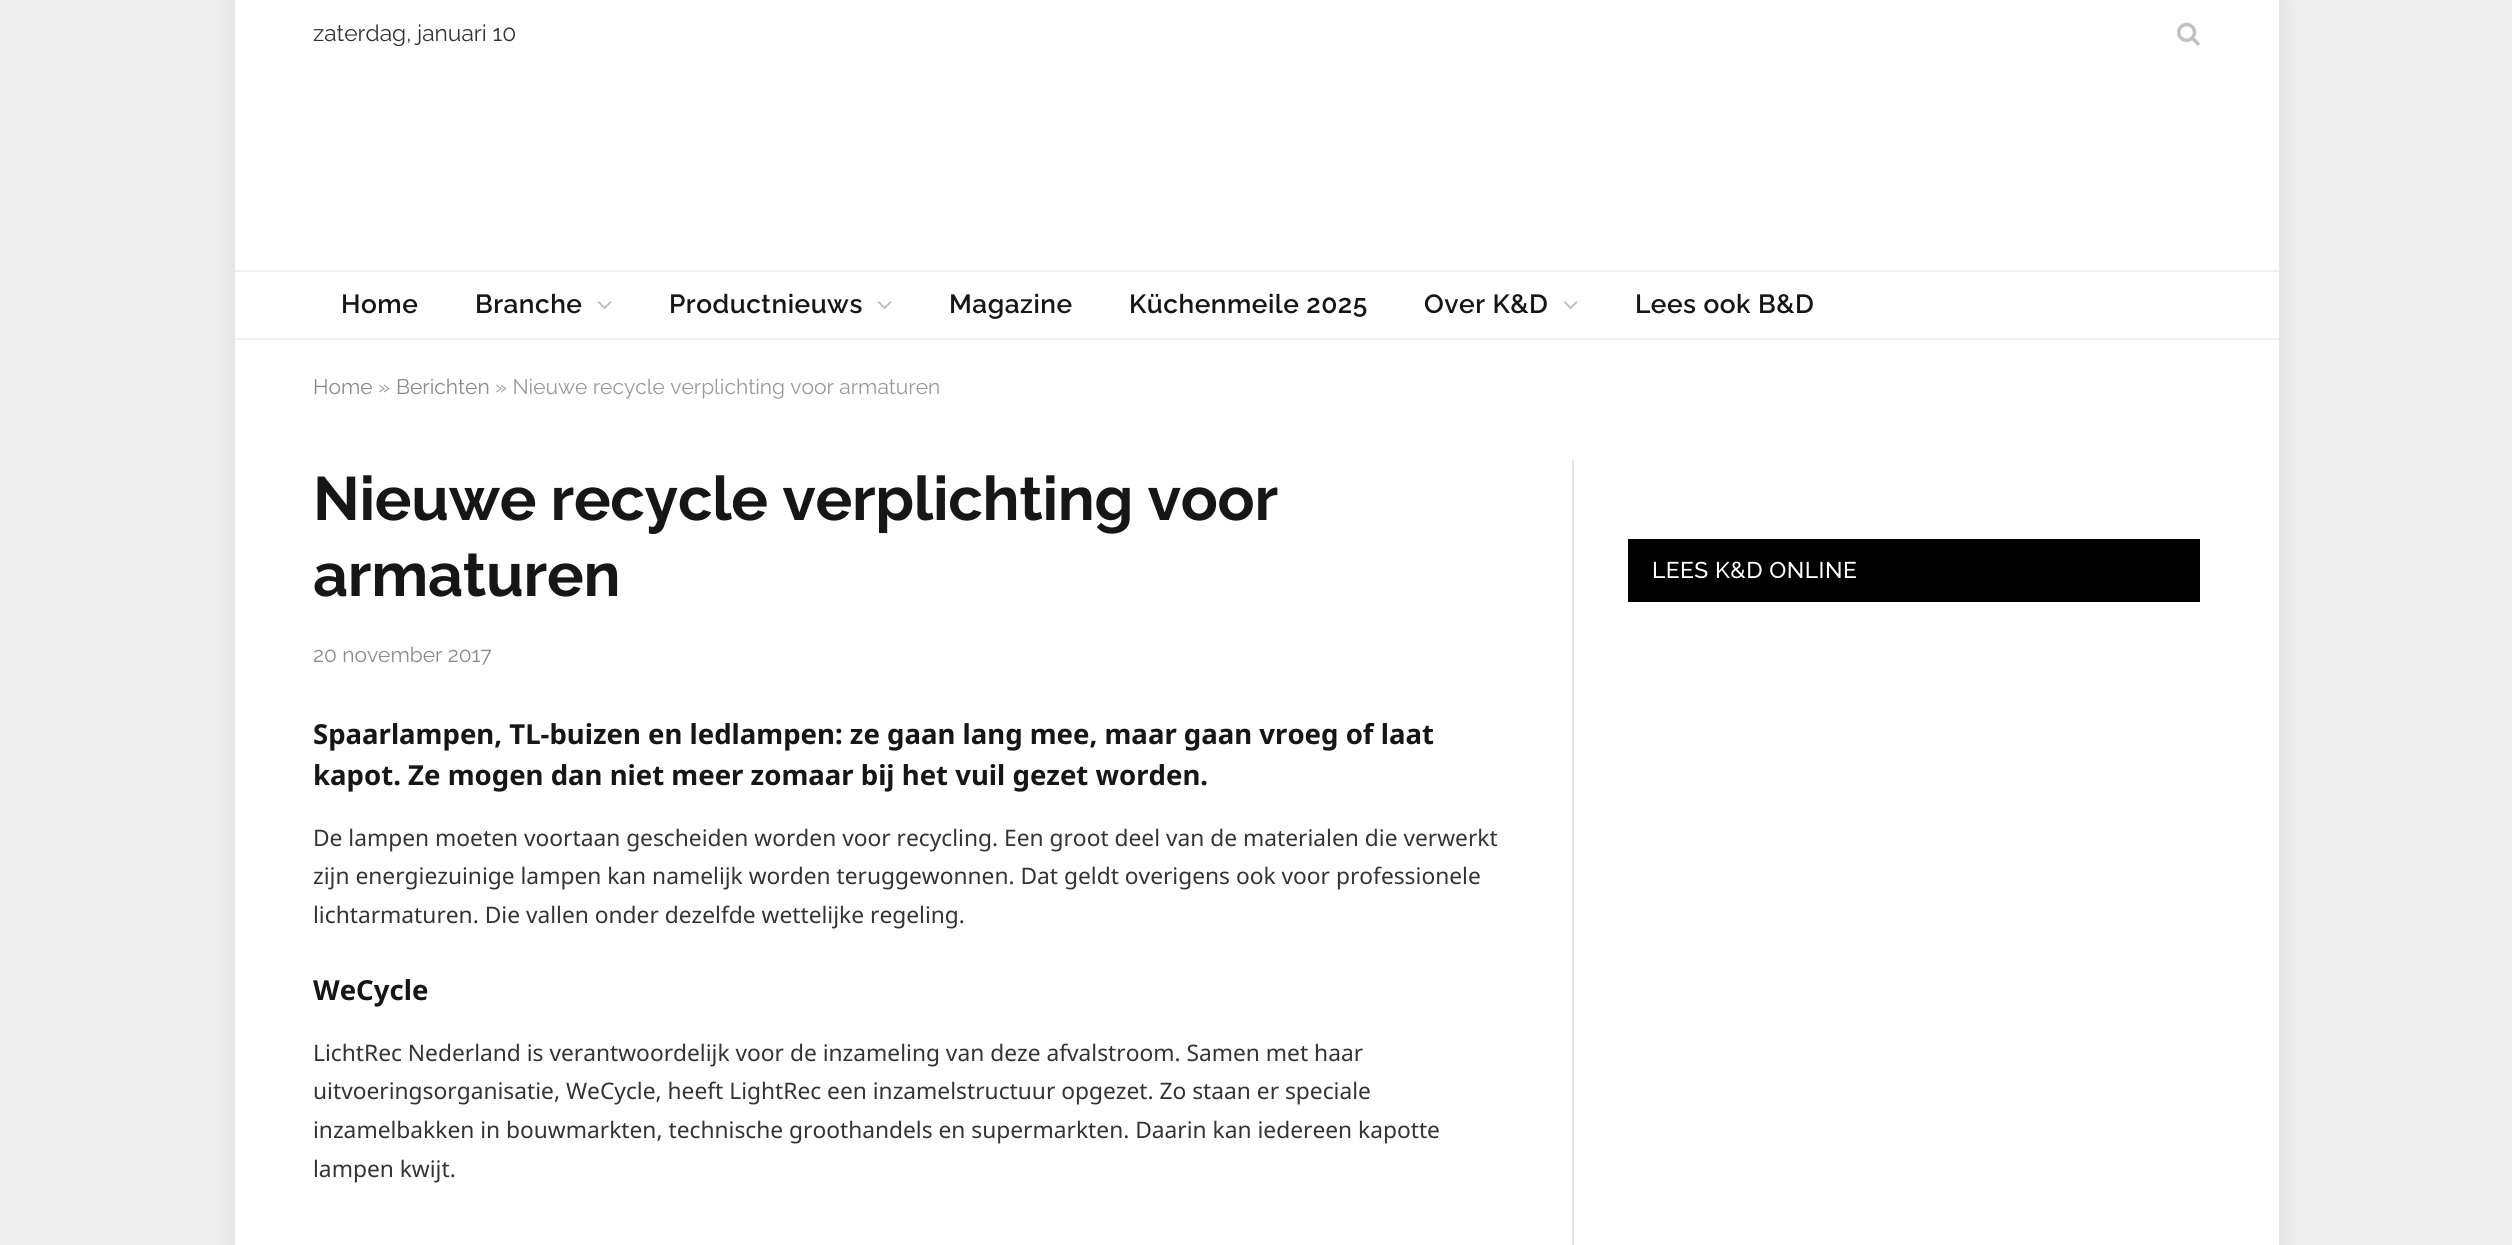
import math
import cairo

surface = cairo.ImageSurface(cairo.FORMAT_RGB24, 2512, 1245)
ctx = cairo.Context(surface)
options = cairo.FontOptions()
options.set_hint_metrics(cairo.HINT_METRICS_OFF)
options.set_hint_style(cairo.HINT_STYLE_NONE)
ctx.set_font_options(options)
ctx.set_miter_limit(4)


def set_color(code):
    ctx.set_source_rgb(*(v / 255 for v in bytes.fromhex(code[-6:])))


def draw_text(x, y, s, family, size, color, bold=False, italic=False):
    ctx.select_font_face(family, cairo.FONT_SLANT_ITALIC if italic else cairo.FONT_SLANT_NORMAL, cairo.FONT_WEIGHT_BOLD if bold else cairo.FONT_WEIGHT_NORMAL)
    ctx.set_font_size(size)
    set_color(color)
    ctx.move_to(x, y)
    ctx.show_text(s)


def draw_spaced(x, y, s, letter, word):
    ctx.move_to(x, y)
    for ch in s:
        ctx.show_text(ch)
        ctx.rel_move_to(letter + word * (ch == ' '), 0)


def fill_rect(x, y, w, h, color):
    set_color(color)
    ctx.rectangle(x, y, w, h)
    ctx.fill()


def rounded_rect(x, y, w, h, r):
    ctx.new_sub_path()
    for i, (u, v) in enumerate([(x + w - r, y + h - r), (x + r, y + h - r), (x + r, y + r), (x + w - r, y + r)]):
        ctx.arc(u, v, r, i * math.pi / 2, (i + 1) * math.pi / 2)
    ctx.close_path()


def draw_shadow(x, y, w, h, r, blur, alpha):
    ctx.push_group_with_content(cairo.CONTENT_ALPHA)
    ctx.set_operator(cairo.OPERATOR_SOURCE)
    for i in range(15, -16, -2):
        e = blur * i / 6
        if min(w, h) + 2 * e > 0:
            ctx.set_source_rgba(0, 0, 0, alpha * math.erfc((i - 1) / 8.5) / 2)
            rounded_rect(x - e, y - e, w + 2 * e, h + 2 * e, max(0, min(r + e + blur * .6, min(w, h) / 2 + e)))
            ctx.fill()
    ctx.mask(ctx.pop_group())


def draw_image(path, x, y, w, h):
    ctx.save()
    ctx.set_source_surface(cairo.ImageSurface.create_from_png(path), x, y)
    ctx.rectangle(x, y, w, h)
    ctx.fill()
    ctx.restore()


set_color("#efefef")
ctx.paint()
set_color("#000000")
draw_shadow(235, 0, 2044, 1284, 0, 13, 0.08)
fill_rect(235, 0, 2044, 1245, "#ffffff")
draw_text(313, 41, "zaterdag, januari 10", "Raleway", 22.75, "#333333")
draw_image("assets/img1.png", 2177, 22, 23, 24)
fill_rect(235, 270, 2044, 2, "#efefef")
fill_rect(235, 338, 2044, 2, "#efefef")
ctx.select_font_face("Raleway SemiBold")
ctx.set_font_size(26.25)
set_color("#161616")
draw_spaced(341, 313, "Home", 0.5, 0)
draw_spaced(475, 313, "Branche", 0.5, 0)
draw_image("assets/img2.png", 597, 301, 15, 8)
draw_spaced(669, 313, "Productnieuws", 0.5, 0)
draw_image("assets/img2.png", 877, 301, 15, 8)
draw_spaced(949, 313, "Magazine", 0.5, 0)
draw_spaced(1129, 313, "Küchenmeile 2025", 0.5, 0)
draw_spaced(1424, 313, "Over K&D", 0.5, 0)
draw_image("assets/img2.png", 1563, 301, 15, 8)
draw_spaced(1635, 313, "Lees ook B&D", 0.5, 0)
draw_text(313, 394, "Home", "Raleway", 21, "#8a8a8a")
draw_text(378, 394, "»", "Raleway", 21, "#999999")
draw_text(396, 394, "Berichten", "Raleway", 21, "#8a8a8a")
draw_text(495, 394, "» Nieuwe recycle verplichting voor armaturen", "Raleway", 21, "#999999")
ctx.select_font_face("Raleway", cairo.FONT_SLANT_NORMAL, cairo.FONT_WEIGHT_BOLD)
ctx.set_font_size(61.25)
set_color("#161616")
draw_spaced(313, 520, "Nieuwe recycle verplichting voor", -0.3, 0)
draw_spaced(313, 596, "armaturen", -0.3, 0)
draw_text(313, 662, "20 november 2017", "Raleway", 21, "#8a8a8a")
draw_text(313, 744, "Spaarlampen, TL-buizen en ledlampen: ze gaan lang mee, maar gaan vroeg of laat", "Noto Sans", 27.55, "#161616", bold=True)
draw_text(313, 785, "kapot. Ze mogen dan niet meer zomaar bij het vuil gezet worden.", "Noto Sans", 27.55, "#161616", bold=True)
draw_text(313, 846, "De lampen moeten voortaan gescheiden worden voor recycling. Een groot deel van de materialen die verwerkt", "Noto Sans", 22.75, "#333333")
draw_text(313, 884, "zijn energiezuinige lampen kan namelijk worden teruggewonnen. Dat geldt overigens ook voor professionele", "Noto Sans", 22.75, "#333333")
draw_text(313, 923, "lichtarmaturen. Die vallen onder dezelfde wettelijke regeling.", "Noto Sans", 22.75, "#333333")
draw_text(313, 1000, "WeCycle", "Noto Sans", 27.55, "#161616", bold=True)
draw_text(313, 1061, "LichtRec Nederland is verantwoordelijk voor de inzameling van deze afvalstroom. Samen met haar", "Noto Sans", 22.75, "#333333")
draw_text(313, 1099, "uitvoeringsorganisatie, WeCycle, heeft LightRec een inzamelstructuur opgezet. Zo staan er speciale", "Noto Sans", 22.75, "#333333")
draw_text(313, 1138, "inzamelbakken in bouwmarkten, technische groothandels en supermarkten. Daarin kan iedereen kapotte", "Noto Sans", 22.75, "#333333")
draw_text(313, 1177, "lampen kwijt.", "Noto Sans", 22.75, "#333333")
fill_rect(1572, 460, 2, 785, "#e2e2e2")
fill_rect(1628, 539, 572, 63, "#000000")
ctx.select_font_face("Raleway Medium")
set_color("#ffffff")
draw_spaced(1652, 578, "LEES K&D ONLINE", 0.5, 0)
surface.write_to_png("output.png")
